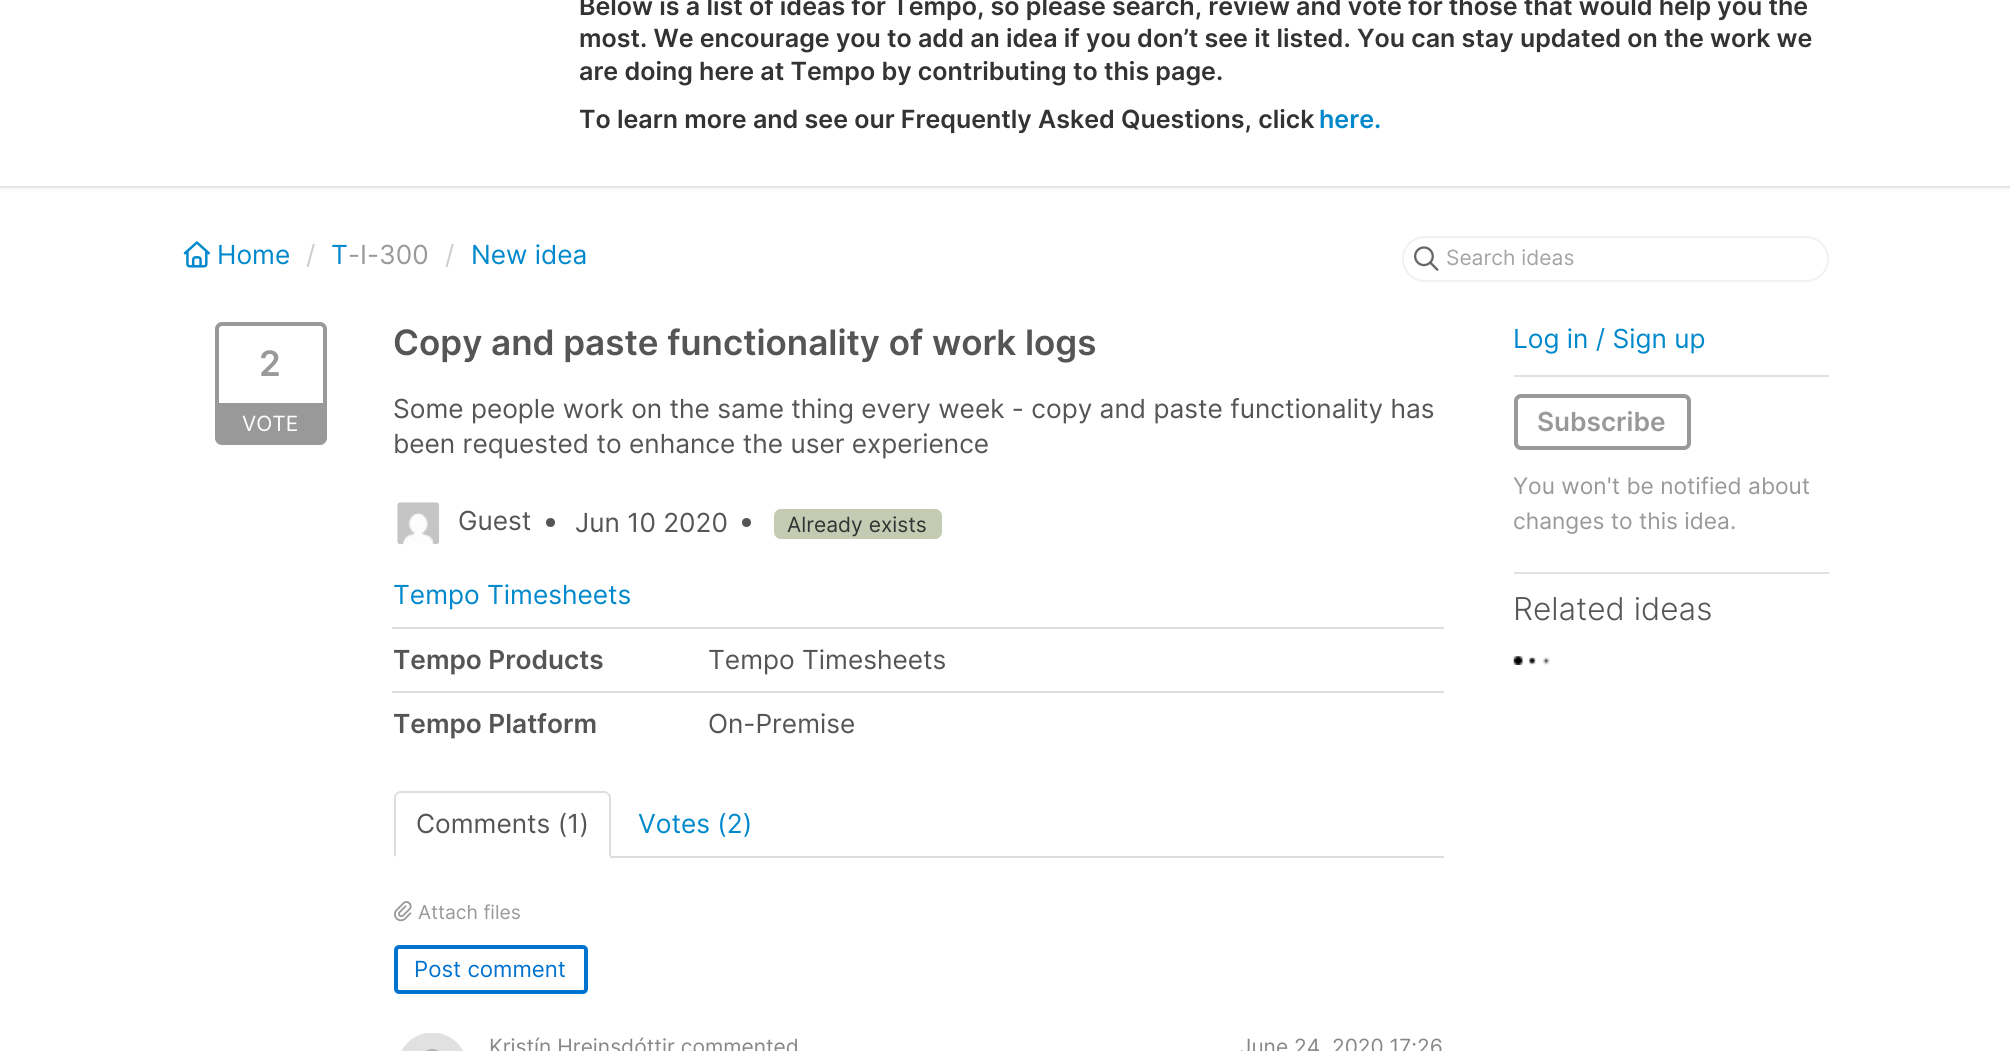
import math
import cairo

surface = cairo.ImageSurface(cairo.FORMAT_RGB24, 2010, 1051)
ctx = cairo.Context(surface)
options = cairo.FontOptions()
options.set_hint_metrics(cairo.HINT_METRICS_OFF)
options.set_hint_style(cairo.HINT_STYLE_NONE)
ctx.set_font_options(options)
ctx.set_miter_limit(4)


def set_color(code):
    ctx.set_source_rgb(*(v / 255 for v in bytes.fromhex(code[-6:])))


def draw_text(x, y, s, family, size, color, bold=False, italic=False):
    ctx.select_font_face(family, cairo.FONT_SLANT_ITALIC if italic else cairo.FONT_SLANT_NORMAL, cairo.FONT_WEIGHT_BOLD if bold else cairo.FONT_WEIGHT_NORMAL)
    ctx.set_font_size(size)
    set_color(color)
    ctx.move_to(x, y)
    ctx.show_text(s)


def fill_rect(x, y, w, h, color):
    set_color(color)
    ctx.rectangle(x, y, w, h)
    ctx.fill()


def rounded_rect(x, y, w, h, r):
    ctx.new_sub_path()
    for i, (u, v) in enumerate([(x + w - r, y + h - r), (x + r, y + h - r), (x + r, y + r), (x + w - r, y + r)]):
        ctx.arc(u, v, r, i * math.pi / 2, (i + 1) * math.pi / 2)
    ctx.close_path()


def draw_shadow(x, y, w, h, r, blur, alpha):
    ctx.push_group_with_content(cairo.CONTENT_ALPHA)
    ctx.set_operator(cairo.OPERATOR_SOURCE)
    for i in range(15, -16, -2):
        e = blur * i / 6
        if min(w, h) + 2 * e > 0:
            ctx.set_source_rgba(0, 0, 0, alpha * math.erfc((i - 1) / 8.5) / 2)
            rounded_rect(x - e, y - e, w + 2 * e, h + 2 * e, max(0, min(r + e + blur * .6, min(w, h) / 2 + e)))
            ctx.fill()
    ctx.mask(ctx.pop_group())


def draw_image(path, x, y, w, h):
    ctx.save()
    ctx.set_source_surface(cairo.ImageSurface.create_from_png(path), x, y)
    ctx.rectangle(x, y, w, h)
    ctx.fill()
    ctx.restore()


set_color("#ffffff")
ctx.paint()
set_color("#000000")
draw_shadow(0, -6, 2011, 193, 0, 2, 0.2)
fill_rect(0, 0, 2010, 186, "#ffffff")
draw_text(579, 15, "Below is a list of ideas for Tempo, so please search, review and vote for those that would help you the", "Inter SemiBold", 25.05, "#333333")
draw_text(579, 47, "most. We encourage you to add an idea if you don’t see it listed. You can stay updated on the work we", "Inter SemiBold", 25.05, "#333333")
draw_text(579, 80, "are doing here at Tempo by contributing to this page.", "Inter SemiBold", 25.05, "#333333")
draw_text(579, 128, "To learn more and see our Frequently Asked Questions, click", "Inter SemiBold", 25.05, "#333333")
draw_text(1319, 128, "here.", "Inter SemiBold", 25.05, "#0088cc")
draw_image("assets/img1.png", 183, 241, 27, 27)
draw_text(217, 264, "Home", "Inter", 26.25, "#0088cc")
draw_text(306, 264, "/", "Inter", 26.25, "#cccccc")
draw_text(331, 264, "T", "Inter", 26.25, "#0088cc")
draw_text(348, 264, "-I-300", "Inter", 26.25, "#999999")
draw_text(445, 264, "/", "Inter", 26.25, "#cccccc")
draw_text(471, 264, "New idea", "Inter", 26.25, "#0088cc")
rounded_rect(1403, 237, 425, 44, 22)
set_color("#f1f1f1")
ctx.stroke()
draw_image("assets/img2.png", 1414, 246, 25, 25)
draw_text(1446, 265, "Search ideas", "Inter", 21, "#a5a5a5")
rounded_rect(217, 324, 108, 119, 5)
set_color("#999999")
ctx.set_line_width(4)
ctx.stroke()
draw_text(259, 376, "2", "Inter SemiBold", 35, "#999999")
fill_rect(219, 403, 104, 38, "#999999")
draw_text(242, 431, "VOTE", "Inter", 21, "#ffffff")
draw_text(393, 355, "Copy and paste functionality of work logs", "Inter SemiBold", 35, "#555555")
draw_text(393, 418, "Some people work on the same thing every week - copy and paste functionality has", "Inter", 26.25, "#555555")
draw_text(393, 453, "been requested to enhance the user experience", "Inter", 26.25, "#555555")
draw_image("assets/img3.png", 397, 502, 43, 43)
draw_text(458, 530, "Guest", "Inter", 26.25, "#555555")
ctx.new_path()
ctx.arc(550.5, 522.5, 4.5, 0, 2 * math.pi)
ctx.fill()
draw_text(575, 532, "Jun 10 2020", "Inter", 26.25, "#555555")
ctx.new_path()
ctx.arc(746.5, 522.5, 4.5, 0, 2 * math.pi)
ctx.fill()
set_color("#c3ccb3")
rounded_rect(774, 509, 168, 30, 7)
ctx.fill()
draw_text(787, 532, "Already exists", "Inter", 21, "#333333")
draw_text(393, 604, "Tempo Timesheets", "Inter", 26.25, "#0088cc")
draw_text(393, 669, "Tempo Products", "Inter SemiBold", 26.25, "#555555")
fill_rect(392, 627, 1052, 2, "#dddddd")
draw_text(708, 669, "Tempo Timesheets", "Inter", 26.25, "#555555")
draw_text(393, 733, "Tempo Platform", "Inter SemiBold", 26.25, "#555555")
fill_rect(392, 691, 1052, 2, "#dddddd")
draw_text(708, 733, "On-Premise", "Inter", 26.25, "#555555")
fill_rect(611, 856, 833, 2, "#dddddd")
ctx.new_path()
ctx.move_to(401, 791)
ctx.curve_to(399, 791, 397, 792, 396, 793)
ctx.line_to(397, 795)
ctx.curve_to(398, 793, 400, 793, 401, 793)
ctx.line_to(605, 793)
ctx.line_to(607, 794)
ctx.line_to(609, 793)
ctx.curve_to(608, 792, 606, 791, 604, 791)
ctx.close_path()
ctx.fill()
ctx.new_path()
ctx.move_to(609, 793)
ctx.line_to(611, 796)
ctx.line_to(611, 858)
ctx.line_to(609, 856)
ctx.line_to(609, 798)
ctx.curve_to(609, 796, 608, 795, 607, 794)
ctx.close_path()
ctx.fill()
ctx.new_path()
ctx.move_to(396, 793)
ctx.curve_to(395, 794, 394, 796, 394, 798)
ctx.line_to(394, 857)
ctx.line_to(396, 855)
ctx.line_to(396, 798)
ctx.curve_to(396, 797, 396, 795, 397, 795)
ctx.close_path()
ctx.fill()
draw_text(416, 833, "Comments (1)", "Inter", 26.25, "#555555")
draw_text(638, 833, "Votes (2)", "Inter", 26.25, "#0088cc")
draw_image("assets/img4.png", 394, 901, 18, 21)
draw_text(418, 919, "Attach files", "Inter", 19.25, "#999999")
rounded_rect(396, 947, 190, 45, 3)
set_color("#0173cf")
ctx.stroke()
draw_text(414, 977, "Post comment", "Inter", 22.25, "#0173cf")
draw_image("assets/img5.png", 401, 1033, 62, 18)
draw_text(489, 1054, "Kristín Hreinsdóttir commented", "Inter", 21, "#888888")
draw_text(1240, 1054, "June 24, 2020 17:26", "Inter", 21, "#888888")
fill_rect(1514, 375, 315, 2, "#e1e1e1")
draw_text(1513, 348, "Log in / Sign up", "Inter", 26.25, "#0088cc")
fill_rect(1514, 572, 315, 2, "#e1e1e1")
rounded_rect(1516, 396, 173, 52, 5)
set_color("#999999")
ctx.stroke()
draw_text(1537, 431, "Subscribe", "Inter SemiBold", 26.25, "#999999")
draw_text(1513, 494, "You won't be notified about", "Inter", 22.75, "#999999")
draw_text(1513, 529, "changes to this idea.", "Inter", 22.75, "#999999")
draw_text(1513, 620, "Related ideas", "Inter Light", 31.5, "#555555")
draw_image("assets/img6.png", 1513, 656, 37, 9)
surface.write_to_png("output.png")
